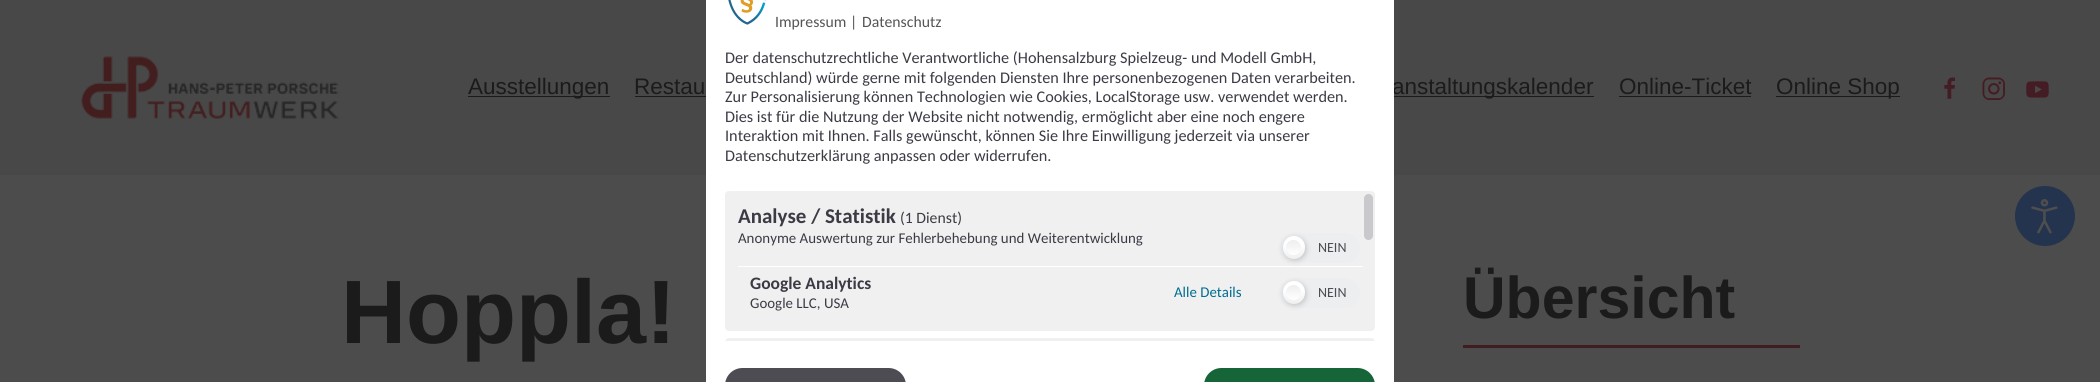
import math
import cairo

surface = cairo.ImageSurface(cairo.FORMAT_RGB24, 2100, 382)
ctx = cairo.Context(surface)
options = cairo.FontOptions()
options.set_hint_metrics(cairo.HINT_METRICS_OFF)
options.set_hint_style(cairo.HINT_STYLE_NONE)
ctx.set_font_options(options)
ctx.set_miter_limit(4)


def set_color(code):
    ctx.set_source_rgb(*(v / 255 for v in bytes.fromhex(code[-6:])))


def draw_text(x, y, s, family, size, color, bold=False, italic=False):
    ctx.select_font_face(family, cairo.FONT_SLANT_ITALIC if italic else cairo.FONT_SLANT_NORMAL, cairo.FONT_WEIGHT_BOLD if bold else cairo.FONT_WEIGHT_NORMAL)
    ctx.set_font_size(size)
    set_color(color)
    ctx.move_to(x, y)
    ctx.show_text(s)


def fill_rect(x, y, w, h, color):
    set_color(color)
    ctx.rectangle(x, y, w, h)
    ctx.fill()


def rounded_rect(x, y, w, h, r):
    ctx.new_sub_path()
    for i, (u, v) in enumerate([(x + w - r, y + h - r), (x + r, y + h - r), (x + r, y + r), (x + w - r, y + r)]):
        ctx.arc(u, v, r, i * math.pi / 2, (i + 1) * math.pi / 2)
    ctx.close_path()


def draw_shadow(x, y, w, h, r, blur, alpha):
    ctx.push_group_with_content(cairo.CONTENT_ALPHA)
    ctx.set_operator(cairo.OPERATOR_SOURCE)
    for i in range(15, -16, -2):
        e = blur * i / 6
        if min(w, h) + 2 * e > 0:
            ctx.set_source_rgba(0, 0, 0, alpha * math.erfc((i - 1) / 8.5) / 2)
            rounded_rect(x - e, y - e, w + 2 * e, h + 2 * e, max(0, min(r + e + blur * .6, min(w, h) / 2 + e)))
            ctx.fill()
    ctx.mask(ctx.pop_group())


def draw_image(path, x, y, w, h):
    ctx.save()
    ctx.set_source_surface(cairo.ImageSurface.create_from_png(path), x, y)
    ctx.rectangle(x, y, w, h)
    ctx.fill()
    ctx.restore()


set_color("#4c4c4c")
ctx.paint()
fill_rect(0, 0, 2100, 175, "#484848")
fill_rect(1394, 96, 200, 1, "#1b1b1b")
draw_text(1392, 94, "anstaltungskalender", "Liberation Sans", 22.5, "#1b1b1b")
fill_rect(706, 0, 688, 382, "#ffffff")
draw_image("assets/img1.png", 728, 0, 39, 25)
draw_text(775, 27, "Impressum", "Carlito", 15.75, "#555555")
draw_text(850, 27, "|", "Carlito", 15.75, "#555555")
draw_text(862, 27, "Datenschutz", "Carlito", 15.75, "#555555")
draw_text(725, 63, "Der datenschutzrechtliche Verantwortliche (Hohensalzburg Spielzeug- und Modell GmbH,", "Carlito", 16.25, "#3b3b45")
draw_text(725, 83, "Deutschland) würde gerne mit folgenden Diensten Ihre personenbezogenen Daten verarbeiten.", "Carlito", 16.25, "#3b3b45")
draw_text(725, 102, "Zur Personalisierung können Technologien wie Cookies, LocalStorage usw. verwendet werden.", "Carlito", 16.25, "#3b3b45")
draw_text(725, 122, "Dies ist für die Nutzung der Website nicht notwendig, ermöglicht aber eine noch engere", "Carlito", 16.25, "#3b3b45")
draw_text(725, 141, "Interaktion mit Ihnen. Falls gewünscht, können Sie Ihre Einwilligung jederzeit via unserer", "Carlito", 16.25, "#3b3b45")
draw_text(725, 161, "Datenschutzerklärung anpassen oder widerrufen.", "Carlito", 16.25, "#3b3b45")
set_color("#f0f0f0")
rounded_rect(725, 191, 650, 140, 4)
ctx.fill()
draw_text(738, 223, "Analyse / Statistik", "Carlito", 21, "#3b3b45", bold=True)
draw_text(900, 223, "(1 Dienst)", "Carlito", 15.75, "#3b3b45")
draw_text(738, 243, "Anonyme Auswertung zur Fehlerbehebung und Weiterentwicklung", "Carlito", 14.9, "#3b3b45")
set_color("#eceeef")
rounded_rect(1279, 233, 81, 30, 15)
ctx.fill()
fill_rect(738, 266, 625, 1, "#ffffff")
set_color("#000000")
draw_shadow(1284, 238, 22, 22, 11, 3, 0.2)
gradient = cairo.LinearGradient(1294, 236, 1294, 258)
gradient.add_color_stop_rgba(0.4, 1, 1, 1, 1)
gradient.add_color_stop_rgba(1, 0.941, 0.941, 0.941, 1)
ctx.set_source(gradient)
rounded_rect(1283, 236, 22, 23, 11)
ctx.fill()
gradient = cairo.LinearGradient(1294, 240, 1294, 255)
gradient.add_color_stop_rgba(0, 0.933, 0.933, 0.933, 1)
gradient.add_color_stop_rgba(1, 1, 1, 1, 1)
ctx.set_source(gradient)
ctx.arc(1293.5, 247.5, 7.5, 0, 2 * math.pi)
ctx.fill()
draw_text(1318, 252, "NEIN", "Carlito", 14, "#4d4c53")
draw_text(750, 289, "Google Analytics", "Carlito", 17.5, "#3b3b45", bold=True)
draw_text(750, 308, "Google LLC, USA", "Carlito", 14.9, "#3b3b45")
draw_text(1174, 297, "Alle Details", "Carlito", 14.9, "#006d91")
set_color("#eceeef")
rounded_rect(1279, 278, 81, 30, 15)
ctx.fill()
set_color("#000000")
draw_shadow(1284, 283, 22, 22, 11, 3, 0.2)
gradient = cairo.LinearGradient(1294, 281, 1294, 303)
gradient.add_color_stop_rgba(0.4, 1, 1, 1, 1)
gradient.add_color_stop_rgba(1, 0.941, 0.941, 0.941, 1)
ctx.set_source(gradient)
rounded_rect(1283, 281, 22, 23, 11)
ctx.fill()
gradient = cairo.LinearGradient(1294, 285, 1294, 300)
gradient.add_color_stop_rgba(0, 0.933, 0.933, 0.933, 1)
gradient.add_color_stop_rgba(1, 1, 1, 1, 1)
ctx.set_source(gradient)
ctx.arc(1293.5, 292.5, 7.5, 0, 2 * math.pi)
ctx.fill()
draw_text(1318, 297, "NEIN", "Carlito", 14, "#4d4c53")
set_color("#f0f0f0")
ctx.new_path()
ctx.move_to(729, 338)
ctx.line_to(1371, 338)
ctx.curve_to(1373, 338, 1375, 340, 1375, 342)
ctx.line_to(1375, 341)
ctx.line_to(725, 341)
ctx.line_to(725, 342)
ctx.curve_to(725, 340, 727, 338, 729, 338)
ctx.close_path()
ctx.fill()
set_color("#c8c8cd")
rounded_rect(1364, 194, 9, 46, 4.5)
ctx.fill()
set_color("#4d4c53")
rounded_rect(725, 368, 181, 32, 17.5)
ctx.fill()
set_color("#156539")
rounded_rect(1204, 368, 171, 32, 17.5)
ctx.fill()
draw_image("assets/img2.png", 81, 56, 258, 63)
fill_rect(468, 96, 142, 1, "#1b1b1b")
draw_text(468, 94, "Ausstellungen", "Liberation Sans", 22.5, "#1b1b1b")
draw_text(634, 94, "Restau", "Liberation Sans", 22.5, "#1b1b1b")
fill_rect(635, 96, 71, 1, "#1b1b1b")
draw_text(1619, 94, "Online-Ticket", "Liberation Sans", 22.5, "#1b1b1b")
fill_rect(1619, 96, 132, 1, "#1b1b1b")
fill_rect(1776, 96, 124, 1, "#1b1b1b")
draw_text(1776, 94, "Online Shop", "Liberation Sans", 22.5, "#1b1b1b")
draw_image("assets/img3.png", 1944, 77, 11, 22)
draw_image("assets/img4.png", 1982, 77, 23, 23)
draw_image("assets/img5.png", 2026, 81, 23, 17)
draw_text(341, 343, "Hoppla!", "Liberation Sans", 90, "#1b1b1b", bold=True)
fill_rect(1463, 345, 337, 3, "#401d20")
draw_text(1463, 318, "Übersicht", "Liberation Sans", 59, "#1b1b1b", bold=True)
set_color("#24334e")
ctx.new_path()
ctx.arc(2045, 216, 30, 0, 2 * math.pi)
ctx.fill()
draw_image("assets/img6.png", 2031, 199, 27, 35)
surface.write_to_png("output.png")
